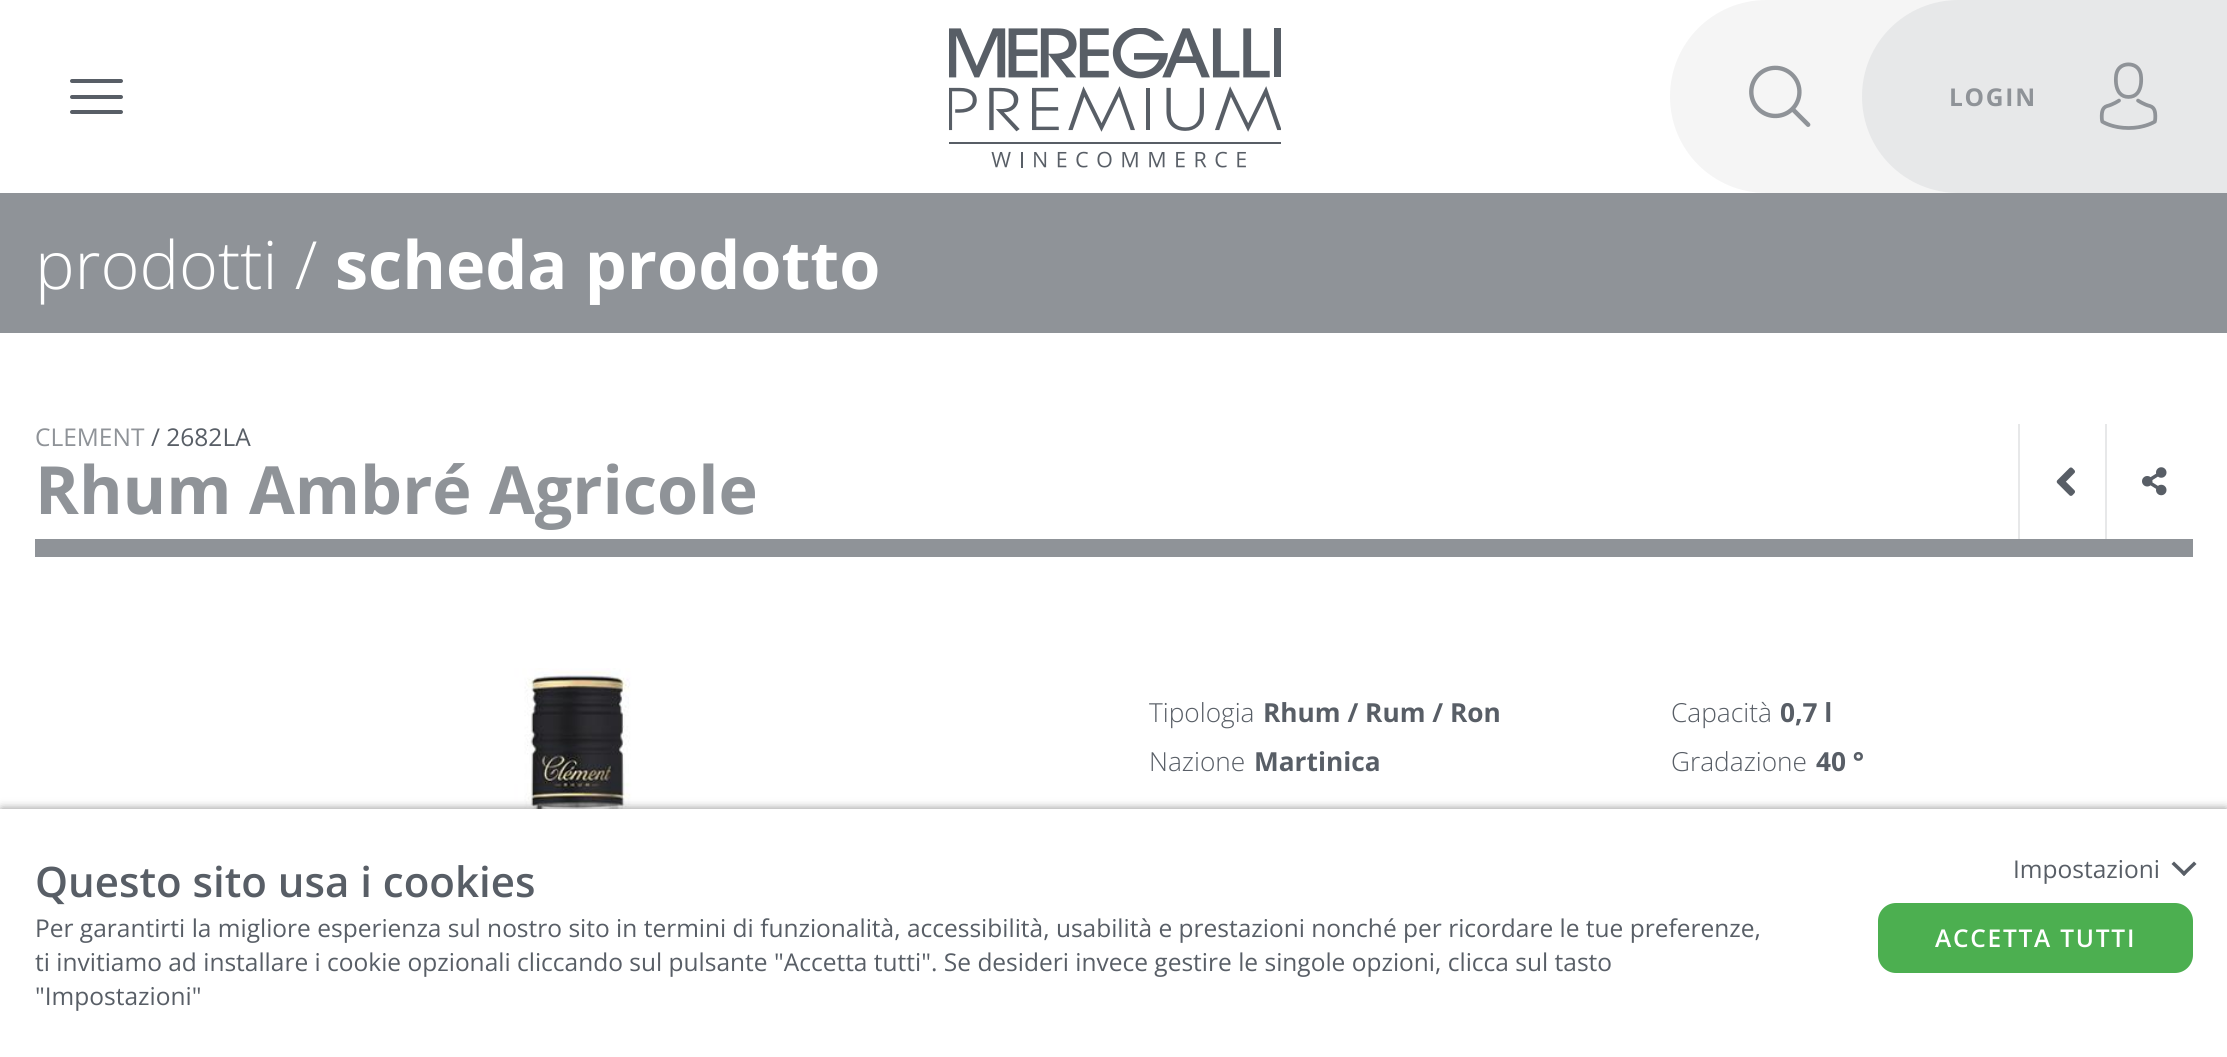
import math
import cairo

surface = cairo.ImageSurface(cairo.FORMAT_RGB24, 2227, 1057)
ctx = cairo.Context(surface)
options = cairo.FontOptions()
options.set_hint_metrics(cairo.HINT_METRICS_OFF)
options.set_hint_style(cairo.HINT_STYLE_NONE)
ctx.set_font_options(options)
ctx.set_miter_limit(4)


def set_color(code):
    ctx.set_source_rgb(*(v / 255 for v in bytes.fromhex(code[-6:])))


def draw_text(x, y, s, family, size, color, bold=False, italic=False):
    ctx.select_font_face(family, cairo.FONT_SLANT_ITALIC if italic else cairo.FONT_SLANT_NORMAL, cairo.FONT_WEIGHT_BOLD if bold else cairo.FONT_WEIGHT_NORMAL)
    ctx.set_font_size(size)
    set_color(color)
    ctx.move_to(x, y)
    ctx.show_text(s)


def draw_spaced(x, y, s, letter, word):
    ctx.move_to(x, y)
    for ch in s:
        ctx.show_text(ch)
        ctx.rel_move_to(letter + word * (ch == ' '), 0)


def fill_rect(x, y, w, h, color):
    set_color(color)
    ctx.rectangle(x, y, w, h)
    ctx.fill()


def rounded_rect(x, y, w, h, r):
    ctx.new_sub_path()
    for i, (u, v) in enumerate([(x + w - r, y + h - r), (x + r, y + h - r), (x + r, y + r), (x + w - r, y + r)]):
        ctx.arc(u, v, r, i * math.pi / 2, (i + 1) * math.pi / 2)
    ctx.close_path()


def draw_shadow(x, y, w, h, r, blur, alpha):
    ctx.push_group_with_content(cairo.CONTENT_ALPHA)
    ctx.set_operator(cairo.OPERATOR_SOURCE)
    for i in range(15, -16, -2):
        e = blur * i / 6
        if min(w, h) + 2 * e > 0:
            ctx.set_source_rgba(0, 0, 0, alpha * math.erfc((i - 1) / 8.5) / 2)
            rounded_rect(x - e, y - e, w + 2 * e, h + 2 * e, max(0, min(r + e + blur * .6, min(w, h) / 2 + e)))
            ctx.fill()
    ctx.mask(ctx.pop_group())


def draw_image(path, x, y, w, h):
    ctx.save()
    ctx.set_source_surface(cairo.ImageSurface.create_from_png(path), x, y)
    ctx.rectangle(x, y, w, h)
    ctx.fill()
    ctx.restore()


set_color("#ffffff")
ctx.paint()
set_color("#585e66")
rounded_rect(70, 79, 53, 4, 2)
ctx.fill()
rounded_rect(70, 95, 53, 4, 2)
ctx.fill()
rounded_rect(70, 110, 53, 4, 2)
ctx.fill()
draw_image("assets/img1.png", 949, 28, 332, 140)
set_color("#f5f5f5")
ctx.new_path()
ctx.move_to(1766.5, 0)
ctx.line_to(2037, 0)
ctx.line_to(2037, 193)
ctx.line_to(1766.5, 193)
ctx.curve_to(1713, 193, 1670, 150, 1670, 96.5)
ctx.curve_to(1670, 43, 1713, 0, 1766.5, 0)
ctx.close_path()
ctx.fill()
draw_image("assets/img2.png", 1749, 65, 62, 62)
set_color("#e7e8e9")
ctx.new_path()
ctx.move_to(1958.5, 0)
ctx.line_to(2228, 0)
ctx.line_to(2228, 193)
ctx.line_to(1958.5, 193)
ctx.curve_to(1905, 193, 1862, 150, 1862, 96.5)
ctx.curve_to(1862, 43, 1905, 0, 1958.5, 0)
ctx.close_path()
ctx.fill()
ctx.select_font_face("Open Sans", cairo.FONT_SLANT_NORMAL, cairo.FONT_WEIGHT_BOLD)
ctx.set_font_size(24.5)
set_color("#8f9398")
draw_spaced(1949, 106, "LOGIN", 1.75, 0)
draw_image("assets/img3.png", 2099, 62, 59, 68)
fill_rect(0, 193, 2227, 140, "#8f9398")
draw_text(35, 289, "prodotti /", "Open Sans Light", 66.5, "#ffffff")
draw_text(335, 289, "scheda prodotto", "Open Sans", 66.5, "#ffffff", bold=True)
draw_text(35, 446, "CLEMENT", "Open Sans", 24.5, "#8f9398")
draw_text(151, 446, "/ 2682LA", "Open Sans", 24.5, "#585e66")
fill_rect(2018, 424, 2, 115, "#e7e8e9")
draw_image("assets/img4.png", 2056, 467, 19, 29)
fill_rect(2105, 424, 2, 115, "#e7e8e9")
draw_image("assets/img5.png", 2142, 467, 25, 29)
draw_text(35, 514, "Rhum Ambré Agricole", "Open Sans", 66.5, "#8f9398", bold=True)
fill_rect(35, 539, 2158, 18, "#8f9398")
draw_image("assets/img6.png", 467, 668, 221, 141)
draw_text(1149, 722, "Tipologia", "Open Sans Light", 26.25, "#585e66")
draw_text(1263, 722, "Rhum / Rum / Ron", "Open Sans", 26.25, "#585e66", bold=True)
draw_text(1671, 722, "Capacità", "Open Sans Light", 26.25, "#585e66")
draw_text(1780, 722, "0,7 l", "Open Sans", 26.25, "#585e66", bold=True)
draw_text(1149, 771, "Nazione", "Open Sans Light", 26.25, "#585e66")
draw_text(1254, 771, "Martinica", "Open Sans", 26.25, "#585e66", bold=True)
draw_text(1671, 771, "Gradazione", "Open Sans Light", 26.25, "#585e66")
draw_text(1816, 771, "40 °", "Open Sans", 26.25, "#585e66", bold=True)
set_color("#6e6e6e")
draw_shadow(2, 810, 2224, 245, 0, 5, 1)
fill_rect(0, 809, 2227, 248, "#ffffff")
draw_text(35, 897, "Questo sito usa i cookies", "Open Sans SemiBold", 42, "#585e66")
draw_text(35, 937, "Per garantirti la migliore esperienza sul nostro sito in termini di funzionalità, accessibilità, usabilità e prestazioni nonché per ricordare le tue preferenze,", "Open Sans", 24.5, "#585e66")
draw_text(35, 971, "ti invitiamo ad installare i cookie opzionali cliccando sul pulsante \"Accetta tutti\". Se desideri invece gestire le singole opzioni, clicca sul tasto", "Open Sans", 24.5, "#585e66")
draw_text(35, 1005, "\"Impostazioni\"", "Open Sans", 24.5, "#585e66")
draw_text(2013, 878, "Impostazioni", "Open Sans", 24.5, "#585e66")
ctx.new_path()
ctx.move_to(2194, 861.5)
ctx.line_to(2196.5, 864)
ctx.line_to(2184, 876)
ctx.line_to(2181.5, 873.5)
ctx.close_path()
ctx.fill()
ctx.new_path()
ctx.move_to(2174, 861.5)
ctx.line_to(2186.5, 873.5)
ctx.line_to(2184, 876)
ctx.line_to(2171.5, 864)
ctx.close_path()
ctx.fill()
set_color("#4caf50")
rounded_rect(1878, 903, 315, 70, 18)
ctx.fill()
ctx.select_font_face("Open Sans SemiBold")
set_color("#ffffff")
draw_spaced(1935, 947, "ACCETTA TUTTI", 1.75, 0)
surface.write_to_png("output.png")
